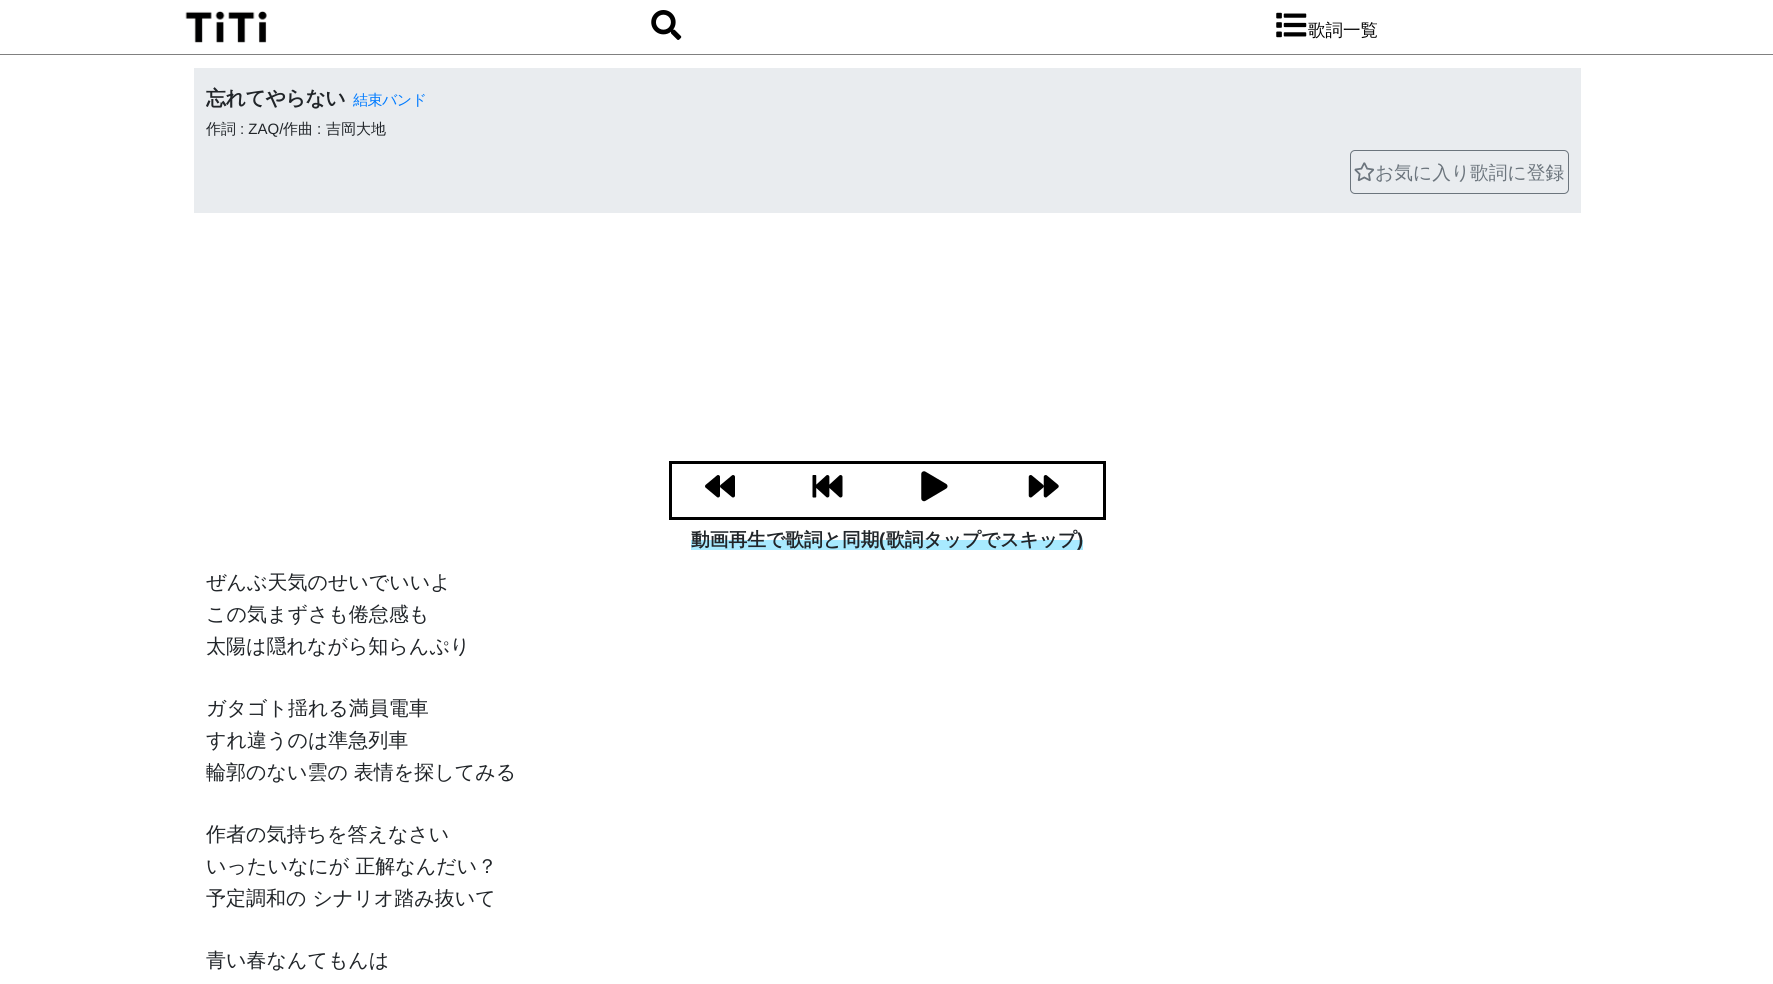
import math
import cairo

surface = cairo.ImageSurface(cairo.FORMAT_RGB24, 1773, 984)
ctx = cairo.Context(surface)
options = cairo.FontOptions()
options.set_hint_metrics(cairo.HINT_METRICS_OFF)
options.set_hint_style(cairo.HINT_STYLE_NONE)
ctx.set_font_options(options)
ctx.set_miter_limit(4)


def set_color(code):
    ctx.set_source_rgb(*(v / 255 for v in bytes.fromhex(code[-6:])))


def draw_text(x, y, s, family, size, color, bold=False, italic=False):
    ctx.select_font_face(family, cairo.FONT_SLANT_ITALIC if italic else cairo.FONT_SLANT_NORMAL, cairo.FONT_WEIGHT_BOLD if bold else cairo.FONT_WEIGHT_NORMAL)
    ctx.set_font_size(size)
    set_color(color)
    ctx.move_to(x, y)
    ctx.show_text(s)


def draw_spaced(x, y, s, letter, word):
    ctx.move_to(x, y)
    for ch in s:
        ctx.show_text(ch)
        ctx.rel_move_to(letter + word * (ch == ' '), 0)


def fill_rect(x, y, w, h, color):
    set_color(color)
    ctx.rectangle(x, y, w, h)
    ctx.fill()


def rounded_rect(x, y, w, h, r):
    ctx.new_sub_path()
    for i, (u, v) in enumerate([(x + w - r, y + h - r), (x + r, y + h - r), (x + r, y + r), (x + w - r, y + r)]):
        ctx.arc(u, v, r, i * math.pi / 2, (i + 1) * math.pi / 2)
    ctx.close_path()


def draw_image(path, x, y, w, h):
    ctx.save()
    ctx.set_source_surface(cairo.ImageSurface.create_from_png(path), x, y)
    ctx.rectangle(x, y, w, h)
    ctx.fill()
    ctx.restore()


set_color("#ffffff")
ctx.paint()
fill_rect(0, 54, 1773, 1, "#808080")
draw_image("assets/img1.png", 185, 11, 82, 32)
draw_image("assets/img2.png", 651, 10, 31, 30)
draw_image("assets/img3.png", 1276, 12, 31, 26)
draw_text(1308, 36, "歌詞一覧", "WenQuanYi Zen Hei Medium", 17.5, "#000000")
fill_rect(194, 68, 1387, 145, "#e9ecef")
ctx.select_font_face("WenQuanYi Zen Hei", cairo.FONT_SLANT_NORMAL, cairo.FONT_WEIGHT_BOLD)
ctx.set_font_size(20)
set_color("#212529")
draw_spaced(206, 105, "忘れてやらない", -0.5, 0)
ctx.select_font_face("WenQuanYi Zen Hei Medium")
ctx.set_font_size(15)
set_color("#007bff")
draw_spaced(353, 105, "結束バンド", -0.5, 0)
draw_text(206, 134, "作詞", "WenQuanYi Zen Hei Medium", 15, "#212529")
draw_text(240, 134, ": ZAQ/", "Liberation Sans", 15, "#212529")
draw_text(283, 134, "作曲", "WenQuanYi Zen Hei Medium", 15, "#212529")
draw_text(317, 134, ":", "Liberation Sans", 15, "#212529")
draw_text(326, 134, "吉岡大地", "WenQuanYi Zen Hei Medium", 15, "#212529")
rounded_rect(1350.5, 150.5, 218, 43, 4.5)
set_color("#6c757d")
ctx.set_line_width(1)
ctx.stroke()
draw_image("assets/img4.png", 1354, 162, 21, 20)
draw_text(1375, 179, "お気に入り歌詞に登録", "WenQuanYi Zen Hei Medium", 18.75, "#6c757d")
ctx.rectangle(670.5, 462.5, 434, 56)
set_color("#000000")
ctx.set_line_width(3)
ctx.stroke()
draw_image("assets/img5.png", 705, 475, 30, 23)
draw_image("assets/img6.png", 812, 475, 31, 23)
draw_image("assets/img7.png", 921, 471, 27, 31)
draw_image("assets/img8.png", 1028, 475, 31, 23)
fill_rect(691, 540, 392, 10, "#a8eaff")
draw_text(691, 546, "動画再生で歌詞と同期", "WenQuanYi Zen Hei", 18.75, "#212529", bold=True)
draw_text(879, 546, "(", "Liberation Sans", 18.75, "#212529", bold=True)
draw_text(886, 546, "歌詞タップでスキップ", "WenQuanYi Zen Hei", 18.75, "#212529", bold=True)
draw_text(1077, 546, ")", "Liberation Sans", 18.75, "#212529", bold=True)
draw_text(206, 589, "ぜんぶ天気のせいでいいよ", "WenQuanYi Zen Hei Medium", 20, "#212529")
draw_text(206, 621, "この気まずさも倦怠感も", "WenQuanYi Zen Hei Medium", 20, "#212529")
draw_text(206, 653, "太陽は隠れながら知らんぷり", "WenQuanYi Zen Hei Medium", 20, "#212529")
draw_text(206, 715, "ガタゴト揺れる満員電車", "WenQuanYi Zen Hei Medium", 20, "#212529")
draw_text(206, 747, "すれ違うのは準急列車", "WenQuanYi Zen Hei Medium", 20, "#212529")
draw_text(206, 779, "輪郭のない雲の 表情を探してみる", "WenQuanYi Zen Hei Medium", 20, "#212529")
draw_text(206, 841, "作者の気持ちを答えなさい", "WenQuanYi Zen Hei Medium", 20, "#212529")
draw_text(206, 873, "いったいなにが 正解なんだい？", "WenQuanYi Zen Hei Medium", 20, "#212529")
draw_text(206, 905, "予定調和の シナリオ踏み抜いて", "WenQuanYi Zen Hei Medium", 20, "#212529")
draw_text(206, 967, "青い春なんてもんは", "WenQuanYi Zen Hei Medium", 20, "#212529")
surface.write_to_png("output.png")
